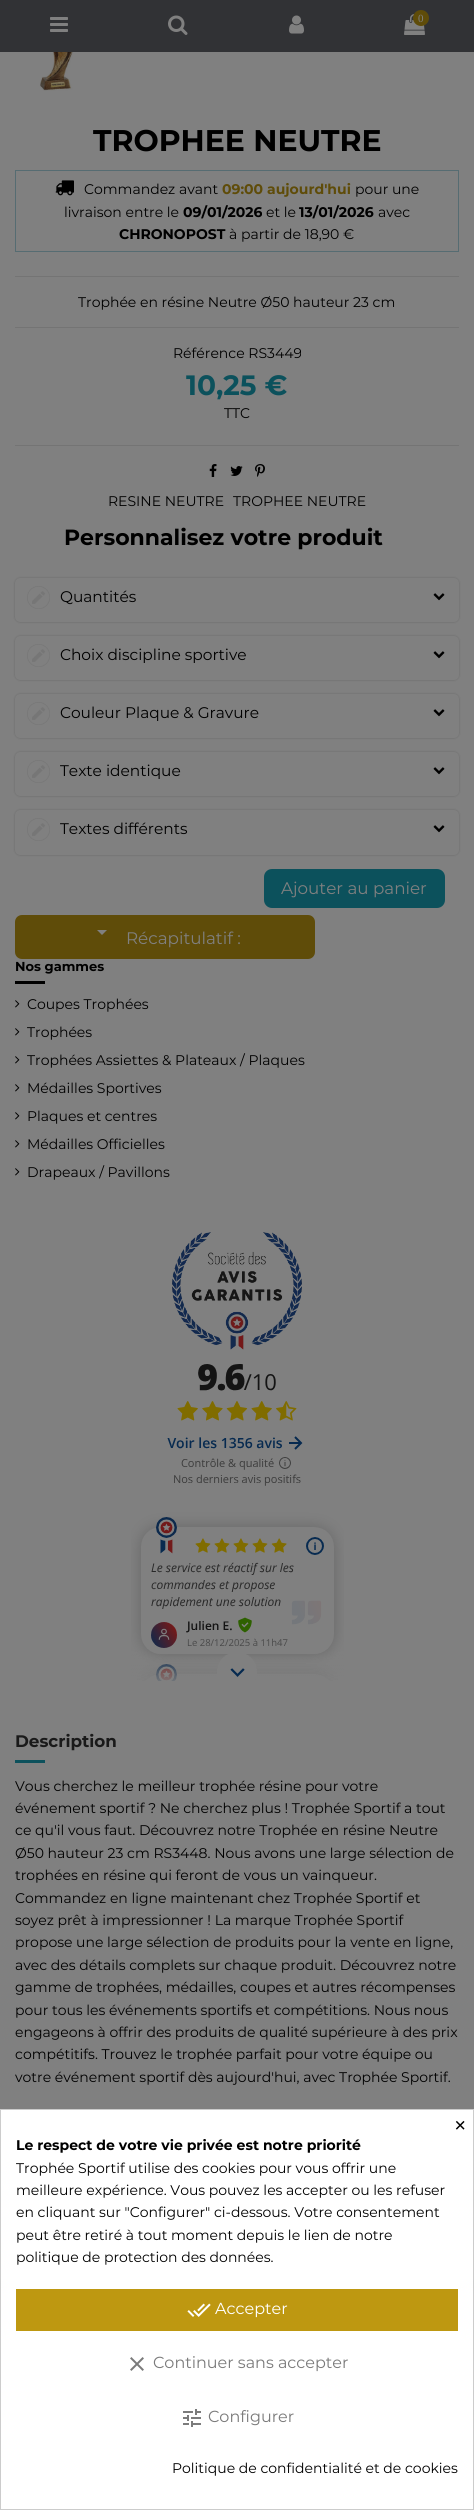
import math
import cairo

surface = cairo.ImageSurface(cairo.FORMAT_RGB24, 474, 2510)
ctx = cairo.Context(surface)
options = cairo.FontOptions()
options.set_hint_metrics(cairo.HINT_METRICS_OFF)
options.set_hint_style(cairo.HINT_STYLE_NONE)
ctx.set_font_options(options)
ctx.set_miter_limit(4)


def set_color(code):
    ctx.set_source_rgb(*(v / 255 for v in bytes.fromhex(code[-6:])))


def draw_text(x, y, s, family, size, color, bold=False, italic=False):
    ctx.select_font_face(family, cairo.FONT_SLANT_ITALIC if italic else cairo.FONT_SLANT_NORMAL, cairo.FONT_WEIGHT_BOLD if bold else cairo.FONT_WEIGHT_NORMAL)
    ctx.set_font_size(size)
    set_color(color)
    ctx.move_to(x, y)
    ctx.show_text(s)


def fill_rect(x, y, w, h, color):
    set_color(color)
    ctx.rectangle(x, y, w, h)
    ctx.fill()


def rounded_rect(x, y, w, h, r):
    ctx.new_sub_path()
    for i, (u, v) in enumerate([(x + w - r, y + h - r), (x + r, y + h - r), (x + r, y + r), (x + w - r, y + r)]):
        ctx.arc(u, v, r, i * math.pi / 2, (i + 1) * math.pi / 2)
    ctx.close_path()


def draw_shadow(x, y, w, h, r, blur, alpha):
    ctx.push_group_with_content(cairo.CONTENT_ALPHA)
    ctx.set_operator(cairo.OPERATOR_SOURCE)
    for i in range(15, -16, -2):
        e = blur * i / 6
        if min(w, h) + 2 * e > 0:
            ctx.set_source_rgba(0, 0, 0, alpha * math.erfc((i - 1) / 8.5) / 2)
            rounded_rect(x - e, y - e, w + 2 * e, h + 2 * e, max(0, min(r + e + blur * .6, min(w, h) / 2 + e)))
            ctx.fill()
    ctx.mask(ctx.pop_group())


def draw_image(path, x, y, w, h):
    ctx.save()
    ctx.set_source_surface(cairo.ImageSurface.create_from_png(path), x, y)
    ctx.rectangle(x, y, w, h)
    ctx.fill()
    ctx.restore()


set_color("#808080")
ctx.paint()
fill_rect(0, 0, 474, 52, "#313235")
draw_image("assets/img1.png", 50, 17, 18, 15)
draw_image("assets/img2.png", 168, 15, 20, 20)
draw_image("assets/img3.png", 289, 15, 15, 19)
draw_image("assets/img4.png", 404, 14, 21, 21)
set_color("#5f4c09")
ctx.arc(421, 18, 8, 0, 2 * math.pi)
ctx.fill()
draw_text(418, 22, "0", "Liberation Serif", 11, "#808080")
draw_image("assets/img5.png", 40, 52, 36, 39)
fill_rect(15, 276, 444, 1, "#747474")
draw_text(93, 151, "TROPHEE NEUTRE", "Montserrat", 29.9, "#000000", bold=True)
ctx.rectangle(15.5, 170.5, 443, 81)
set_color("#566c72")
ctx.set_line_width(1)
ctx.stroke()
draw_image("assets/img6.png", 55, 180, 19, 16)
draw_text(84, 194, "Commandez avant", "Montserrat", 14, "#000000")
draw_text(222, 194, "09:00 aujourd'hui", "Montserrat", 14, "#5f4c09", bold=True)
draw_text(355, 194, "pour une", "Montserrat", 14, "#000000")
draw_text(64, 217, "livraison entre le", "Montserrat", 14, "#000000")
draw_text(183, 217, "09/01/2026", "Montserrat", 14, "#000000", bold=True)
draw_text(266, 217, "et le", "Montserrat", 14, "#000000")
draw_text(299, 217, "13/01/2026", "Montserrat", 14, "#000000", bold=True)
draw_text(378, 217, "avec", "Montserrat", 14, "#000000")
draw_text(119, 239, "CHRONOPOST", "Montserrat", 14, "#000000", bold=True)
draw_text(229, 239, "à partir de 18,90 €", "Montserrat", 14, "#000000")
draw_text(78, 307, "Trophée en résine Neutre Ø50 hauteur 23 cm", "Montserrat", 14, "#000000")
fill_rect(15, 327, 444, 1, "#747474")
draw_text(173, 358, "Référence RS3449", "Montserrat", 14, "#000000")
draw_text(186, 395, "10,25 €", "Montserrat", 28, "#0c515c", bold=True)
draw_text(224, 418, "TTC", "Montserrat", 14, "#000000")
fill_rect(15, 445, 444, 1, "#747474")
draw_image("assets/img7.png", 209, 464, 8, 13)
draw_image("assets/img8.png", 230, 466, 13, 10)
draw_image("assets/img9.png", 255, 464, 10, 13)
draw_text(108, 506, "RESINE NEUTRE", "Montserrat", 14, "#000000")
draw_text(233, 506, "TROPHEE NEUTRE", "Montserrat", 14, "#000000")
draw_text(64, 545, "Personnalisez votre produit", "Montserrat", 22, "#000000", bold=True)
set_color("#000000")
draw_shadow(15, 578, 444, 44, 5, 1, 0.2)
set_color("#808080")
rounded_rect(15, 578, 444, 44, 5)
ctx.fill()
draw_image("assets/img10.png", 27, 586, 23, 23)
draw_text(60, 602, "Quantités", "Montserrat", 15.4, "#000000")
draw_image("assets/img11.png", 433, 593, 12, 8)
set_color("#000000")
draw_shadow(15, 636, 444, 44, 5, 1, 0.2)
set_color("#808080")
rounded_rect(15, 636, 444, 44, 5)
ctx.fill()
draw_image("assets/img10.png", 27, 644, 23, 23)
draw_text(60, 660, "Choix discipline sportive", "Montserrat", 15.4, "#000000")
draw_image("assets/img11.png", 433, 651, 12, 8)
set_color("#000000")
draw_shadow(15, 694, 444, 44, 5, 1, 0.2)
set_color("#808080")
rounded_rect(15, 694, 444, 44, 5)
ctx.fill()
draw_image("assets/img10.png", 27, 702, 23, 23)
draw_text(60, 718, "Couleur Plaque & Gravure", "Montserrat", 15.4, "#000000")
draw_image("assets/img11.png", 433, 709, 12, 8)
set_color("#000000")
draw_shadow(15, 752, 444, 44, 5, 1, 0.2)
set_color("#808080")
rounded_rect(15, 752, 444, 44, 5)
ctx.fill()
draw_image("assets/img10.png", 27, 760, 23, 23)
draw_text(60, 776, "Texte identique", "Montserrat", 15.4, "#000000")
draw_image("assets/img11.png", 433, 767, 12, 8)
set_color("#000000")
draw_shadow(15, 810, 444, 45, 5, 1, 0.2)
set_color("#808080")
rounded_rect(15, 810, 444, 45, 5)
ctx.fill()
draw_image("assets/img10.png", 27, 818, 23, 23)
draw_text(60, 834, "Textes différents", "Montserrat", 15.4, "#000000")
draw_image("assets/img11.png", 433, 825, 12, 8)
set_color("#0c515c")
rounded_rect(264, 869, 181, 39, 8)
ctx.fill()
draw_text(281, 894, "Ajouter au panier", "Montserrat", 16.75, "#808080")
set_color("#5f4c09")
rounded_rect(15, 915, 300, 44, 7)
ctx.fill()
set_color("#808080")
ctx.new_path()
ctx.move_to(97, 930)
ctx.line_to(107, 930)
ctx.line_to(102, 935)
ctx.close_path()
ctx.fill()
draw_text(126, 944, "Récapitulatif :", "Montserrat", 16.75, "#808080")
draw_text(15, 971, "Nos gammes", "Montserrat", 13, "#000000", bold=True)
fill_rect(15, 981, 30, 3, "#000000")
draw_image("assets/img12.png", 15, 1000, 5, 8)
draw_text(27, 1009, "Coupes Trophées", "Montserrat", 14, "#000000")
draw_image("assets/img12.png", 15, 1028, 5, 8)
draw_text(27, 1037, "Trophées", "Montserrat", 14, "#000000")
draw_image("assets/img12.png", 15, 1056, 5, 8)
draw_text(27, 1065, "Trophées Assiettes & Plateaux / Plaques", "Montserrat", 14, "#000000")
draw_image("assets/img12.png", 15, 1084, 5, 8)
draw_text(27, 1093, "Médailles Sportives", "Montserrat", 14, "#000000")
draw_image("assets/img12.png", 15, 1112, 5, 8)
draw_text(27, 1121, "Plaques et centres", "Montserrat", 14, "#000000")
draw_image("assets/img12.png", 15, 1140, 5, 8)
draw_text(27, 1149, "Médailles Officielles", "Montserrat", 14, "#000000")
draw_image("assets/img12.png", 15, 1168, 5, 8)
draw_text(27, 1177, "Drapeaux / Pavillons", "Montserrat", 14, "#000000")
draw_image("assets/img13.png", 131, 1232, 213, 449)
draw_text(15, 1747, "Description", "Montserrat", 16.75, "#1a1a1a", bold=True)
fill_rect(15, 1760, 30, 3, "#0c515c")
draw_text(15, 1791, "Vous cherchez le meilleur trophée résine pour votre", "Montserrat", 14, "#000000")
draw_text(15, 1813, "événement sportif ? Ne cherchez plus ! Trophée Sportif a tout", "Montserrat", 14, "#000000")
draw_text(15, 1835, "ce qu'il vous faut. Découvrez notre Trophée en résine Neutre", "Montserrat", 14, "#000000")
draw_text(15, 1858, "Ø50 hauteur 23 cm RS3448. Nous avons une large sélection de", "Montserrat", 14, "#000000")
draw_text(15, 1880, "trophées en résine qui feront de vous un vainqueur.", "Montserrat", 14, "#000000")
draw_text(15, 1903, "Commandez en ligne maintenant chez Trophée Sportif et", "Montserrat", 14, "#000000")
draw_text(15, 1925, "soyez prêt à impressionner ! La marque Trophée Sportif", "Montserrat", 14, "#000000")
draw_text(15, 1947, "propose une large sélection de produits pour la vente en ligne,", "Montserrat", 14, "#000000")
draw_text(15, 1970, "avec des détails complets sur chaque produit. Découvrez notre", "Montserrat", 14, "#000000")
draw_text(15, 1992, "gamme de trophées, médailles, coupes et autres récompenses", "Montserrat", 14, "#000000")
draw_text(15, 2015, "pour tous les événements sportifs et compétitions. Nous nous", "Montserrat", 14, "#000000")
draw_text(15, 2037, "engageons à offrir des produits de qualité supérieure à des prix", "Montserrat", 14, "#000000")
draw_text(15, 2059, "compétitifs. Trouvez le trophée parfait pour votre équipe ou", "Montserrat", 14, "#000000")
draw_text(15, 2082, "votre événement sportif dès aujourd'hui, avec Trophée Sportif.", "Montserrat", 14, "#000000")
set_color("#ffffff")
ctx.rectangle(0.5, 2109.5, 473, 400)
ctx.fill_preserve()
set_color("#cccccc")
ctx.stroke()
draw_text(453, 2134, "×", "Montserrat", 25, "#000000")
draw_text(16, 2150, "Le respect de votre vie privée est notre priorité", "Montserrat", 14, "#000000", bold=True)
draw_text(16, 2173, "Trophée Sportif utilise des cookies pour vous offrir une", "Montserrat", 14, "#000000")
draw_text(16, 2195, "meilleure expérience. Vous pouvez les accepter ou les refuser", "Montserrat", 14, "#000000")
draw_text(16, 2217, "en cliquant sur \"Configurer\" ci-dessous. Votre consentement", "Montserrat", 14, "#000000")
draw_text(16, 2240, "peut être retiré à tout moment depuis le lien de notre", "Montserrat", 14, "#000000")
draw_text(16, 2262, "politique de protection des données.", "Montserrat", 14, "#000000")
fill_rect(16, 2289, 442, 42, "#be9811")
draw_image("assets/img14.png", 187, 2303, 24, 14)
draw_text(215, 2314, "Accepter", "Montserrat", 16, "#ffffff")
draw_image("assets/img15.png", 130, 2357, 14, 14)
draw_text(153, 2368, "Continuer sans accepter", "Montserrat", 16, "#7a7a7a")
draw_image("assets/img16.png", 183, 2409, 18, 18)
draw_text(208, 2422, "Configurer", "Montserrat", 16, "#7a7a7a")
draw_text(172, 2473, "Politique de confidentialité et de cookies", "Montserrat", 14, "#000000")
surface.write_to_png("output.png")
